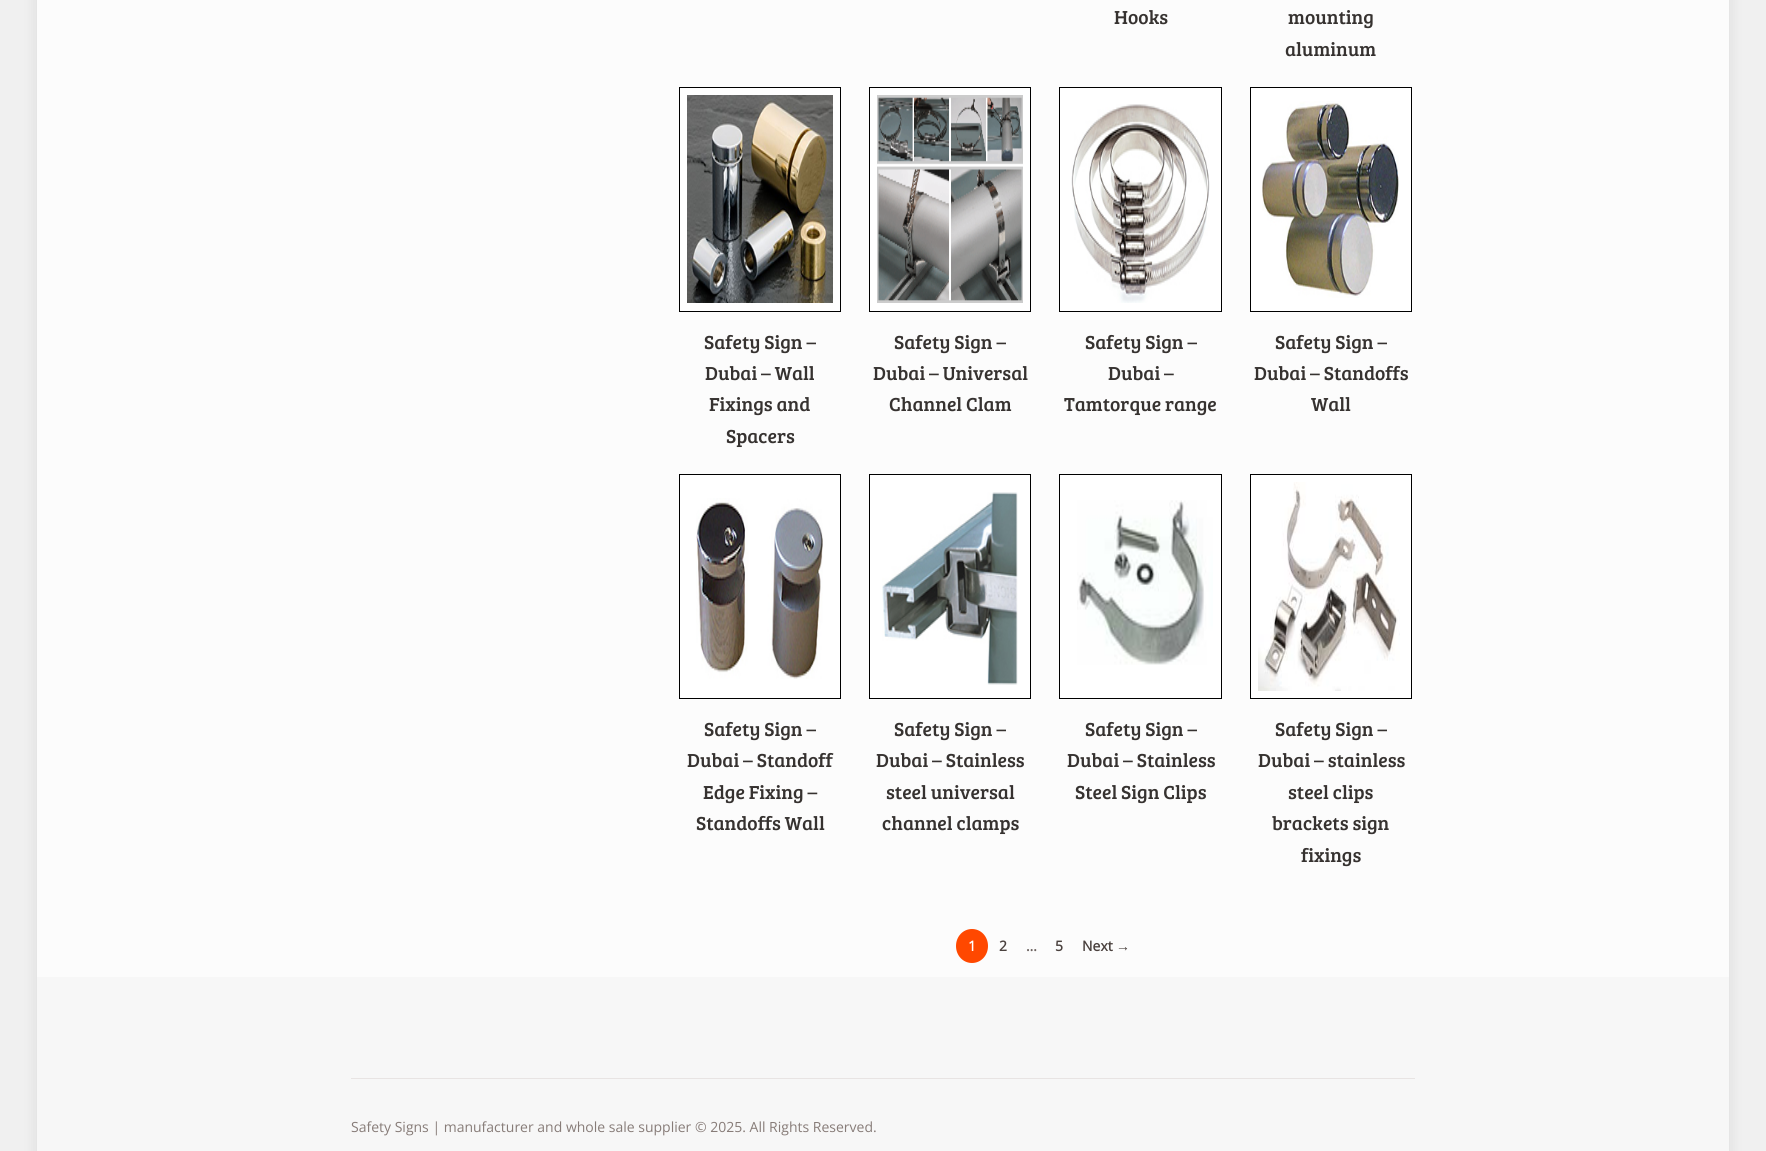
import math
import cairo

surface = cairo.ImageSurface(cairo.FORMAT_RGB24, 1766, 1151)
ctx = cairo.Context(surface)
options = cairo.FontOptions()
options.set_hint_metrics(cairo.HINT_METRICS_OFF)
options.set_hint_style(cairo.HINT_STYLE_NONE)
ctx.set_font_options(options)
ctx.set_miter_limit(4)


def set_color(code):
    ctx.set_source_rgb(*(v / 255 for v in bytes.fromhex(code[-6:])))


def draw_text(x, y, s, family, size, color, bold=False, italic=False):
    ctx.select_font_face(family, cairo.FONT_SLANT_ITALIC if italic else cairo.FONT_SLANT_NORMAL, cairo.FONT_WEIGHT_BOLD if bold else cairo.FONT_WEIGHT_NORMAL)
    ctx.set_font_size(size)
    set_color(color)
    ctx.move_to(x, y)
    ctx.show_text(s)


def fill_rect(x, y, w, h, color):
    set_color(color)
    ctx.rectangle(x, y, w, h)
    ctx.fill()


def rounded_rect(x, y, w, h, r):
    ctx.new_sub_path()
    for i, (u, v) in enumerate([(x + w - r, y + h - r), (x + r, y + h - r), (x + r, y + r), (x + w - r, y + r)]):
        ctx.arc(u, v, r, i * math.pi / 2, (i + 1) * math.pi / 2)
    ctx.close_path()


def draw_shadow(x, y, w, h, r, blur, alpha):
    ctx.push_group_with_content(cairo.CONTENT_ALPHA)
    ctx.set_operator(cairo.OPERATOR_SOURCE)
    for i in range(15, -16, -2):
        e = blur * i / 6
        if min(w, h) + 2 * e > 0:
            ctx.set_source_rgba(0, 0, 0, alpha * math.erfc((i - 1) / 8.5) / 2)
            rounded_rect(x - e, y - e, w + 2 * e, h + 2 * e, max(0, min(r + e + blur * .6, min(w, h) / 2 + e)))
            ctx.fill()
    ctx.mask(ctx.pop_group())


def draw_image(path, x, y, w, h):
    ctx.save()
    ctx.set_source_surface(cairo.ImageSurface.create_from_png(path), x, y)
    ctx.rectangle(x, y, w, h)
    ctx.fill()
    ctx.restore()


set_color("#f0f0f0")
ctx.paint()
set_color("#000000")
draw_shadow(37, -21, 1692, 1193, 0, 7, 0.1)
fill_rect(37, 0, 1692, 977, "#fcfcfc")
draw_text(1114, 24, "Hooks", "Bree Serif", 19.5, "#363230")
draw_text(1288, 24, "mounting", "Bree Serif", 19.5, "#363230")
draw_text(1285, 56, "aluminum", "Bree Serif", 19.5, "#363230")
set_color("#ffffff")
ctx.rectangle(679.5, 87.5, 161, 224)
ctx.fill_preserve()
set_color("#000000")
ctx.set_line_width(1)
ctx.stroke()
draw_image("assets/img1.png", 687, 95, 146, 208)
draw_text(704, 349, "Safety Sign –", "Bree Serif", 19.5, "#363230")
draw_text(705, 380, "Dubai – Wall", "Bree Serif", 19.5, "#363230")
draw_text(709, 411, "Fixings and", "Bree Serif", 19.5, "#363230")
draw_text(726, 443, "Spacers", "Bree Serif", 19.5, "#363230")
set_color("#ffffff")
ctx.rectangle(869.5, 87.5, 161, 224)
ctx.fill_preserve()
set_color("#000000")
ctx.stroke()
draw_image("assets/img2.png", 877, 95, 146, 208)
draw_text(894, 349, "Safety Sign –", "Bree Serif", 19.5, "#363230")
draw_text(873, 380, "Dubai – Universal", "Bree Serif", 19.5, "#363230")
draw_text(889, 411, "Channel Clam", "Bree Serif", 19.5, "#363230")
set_color("#ffffff")
ctx.rectangle(1059.5, 87.5, 162, 224)
ctx.fill_preserve()
set_color("#000000")
ctx.stroke()
draw_image("assets/img3.png", 1071, 104, 139, 199)
draw_text(1085, 349, "Safety Sign –", "Bree Serif", 19.5, "#363230")
draw_text(1108, 380, "Dubai –", "Bree Serif", 19.5, "#363230")
draw_text(1064, 411, "Tamtorque range", "Bree Serif", 19.5, "#363230")
set_color("#ffffff")
ctx.rectangle(1250.5, 87.5, 161, 224)
ctx.fill_preserve()
set_color("#000000")
ctx.stroke()
draw_image("assets/img4.png", 1262, 101, 137, 197)
draw_text(1275, 349, "Safety Sign –", "Bree Serif", 19.5, "#363230")
draw_text(1254, 380, "Dubai – Standoffs", "Bree Serif", 19.5, "#363230")
draw_text(1311, 411, "Wall", "Bree Serif", 19.5, "#363230")
set_color("#ffffff")
ctx.rectangle(679.5, 474.5, 161, 224)
ctx.fill_preserve()
set_color("#000000")
ctx.stroke()
draw_image("assets/img5.png", 696, 498, 127, 181)
draw_text(704, 736, "Safety Sign –", "Bree Serif", 19.5, "#363230")
draw_text(687, 767, "Dubai – Standoff", "Bree Serif", 19.5, "#363230")
draw_text(703, 799, "Edge Fixing –", "Bree Serif", 19.5, "#363230")
draw_text(696, 830, "Standoffs Wall", "Bree Serif", 19.5, "#363230")
set_color("#ffffff")
ctx.rectangle(869.5, 474.5, 161, 224)
ctx.fill_preserve()
set_color("#000000")
ctx.stroke()
draw_image("assets/img6.png", 882, 492, 136, 193)
draw_text(894, 736, "Safety Sign –", "Bree Serif", 19.5, "#363230")
draw_text(876, 767, "Dubai – Stainless", "Bree Serif", 19.5, "#363230")
draw_text(886, 799, "steel universal", "Bree Serif", 19.5, "#363230")
draw_text(882, 830, "channel clamps", "Bree Serif", 19.5, "#363230")
set_color("#ffffff")
ctx.rectangle(1059.5, 474.5, 162, 224)
ctx.fill_preserve()
set_color("#000000")
ctx.stroke()
draw_image("assets/img7.png", 1077, 500, 136, 165)
draw_text(1085, 736, "Safety Sign –", "Bree Serif", 19.5, "#363230")
draw_text(1067, 767, "Dubai – Stainless", "Bree Serif", 19.5, "#363230")
draw_text(1075, 799, "Steel Sign Clips", "Bree Serif", 19.5, "#363230")
set_color("#ffffff")
ctx.rectangle(1250.5, 474.5, 161, 224)
ctx.fill_preserve()
set_color("#000000")
ctx.stroke()
draw_image("assets/img8.png", 1258, 482, 142, 209)
draw_text(1275, 736, "Safety Sign –", "Bree Serif", 19.5, "#363230")
draw_text(1258, 767, "Dubai – stainless", "Bree Serif", 19.5, "#363230")
draw_text(1288, 799, "steel clips", "Bree Serif", 19.5, "#363230")
draw_text(1272, 830, "brackets sign", "Bree Serif", 19.5, "#363230")
draw_text(1301, 862, "fixings", "Bree Serif", 19.5, "#363230")
set_color("#ff4800")
ctx.new_path()
ctx.move_to(972, 929)
ctx.curve_to(981, 929, 988, 936.5, 988, 946)
ctx.curve_to(988, 955.5, 981, 963, 972, 963)
ctx.curve_to(963, 963, 956, 955.5, 956, 946)
ctx.curve_to(956, 936.5, 963, 929, 972, 929)
ctx.close_path()
ctx.fill()
draw_text(968, 951, "1", "Open Sans", 14, "#ffffff", bold=True)
draw_text(999, 951, "2", "Open Sans", 14, "#4a413e", bold=True)
draw_text(1026, 951, "…", "Open Sans", 14, "#6c6360", bold=True)
draw_text(1055, 951, "5", "Open Sans", 14, "#4a413e", bold=True)
draw_text(1082, 951, "Next", "Open Sans", 14, "#4a413e", bold=True)
draw_text(1116, 951, "→", "Liberation Sans", 14, "#4a413e", bold=True)
fill_rect(37, 977, 1692, 174, "#f7f7f7")
fill_rect(351, 1078, 1064, 1, "#e8e4e3")
draw_text(351, 1132, "Safety Signs | manufacturer and whole sale supplier © 2025. All Rights Reserved.", "Open Sans", 14, "#877c78")
surface.write_to_png("output.png")
